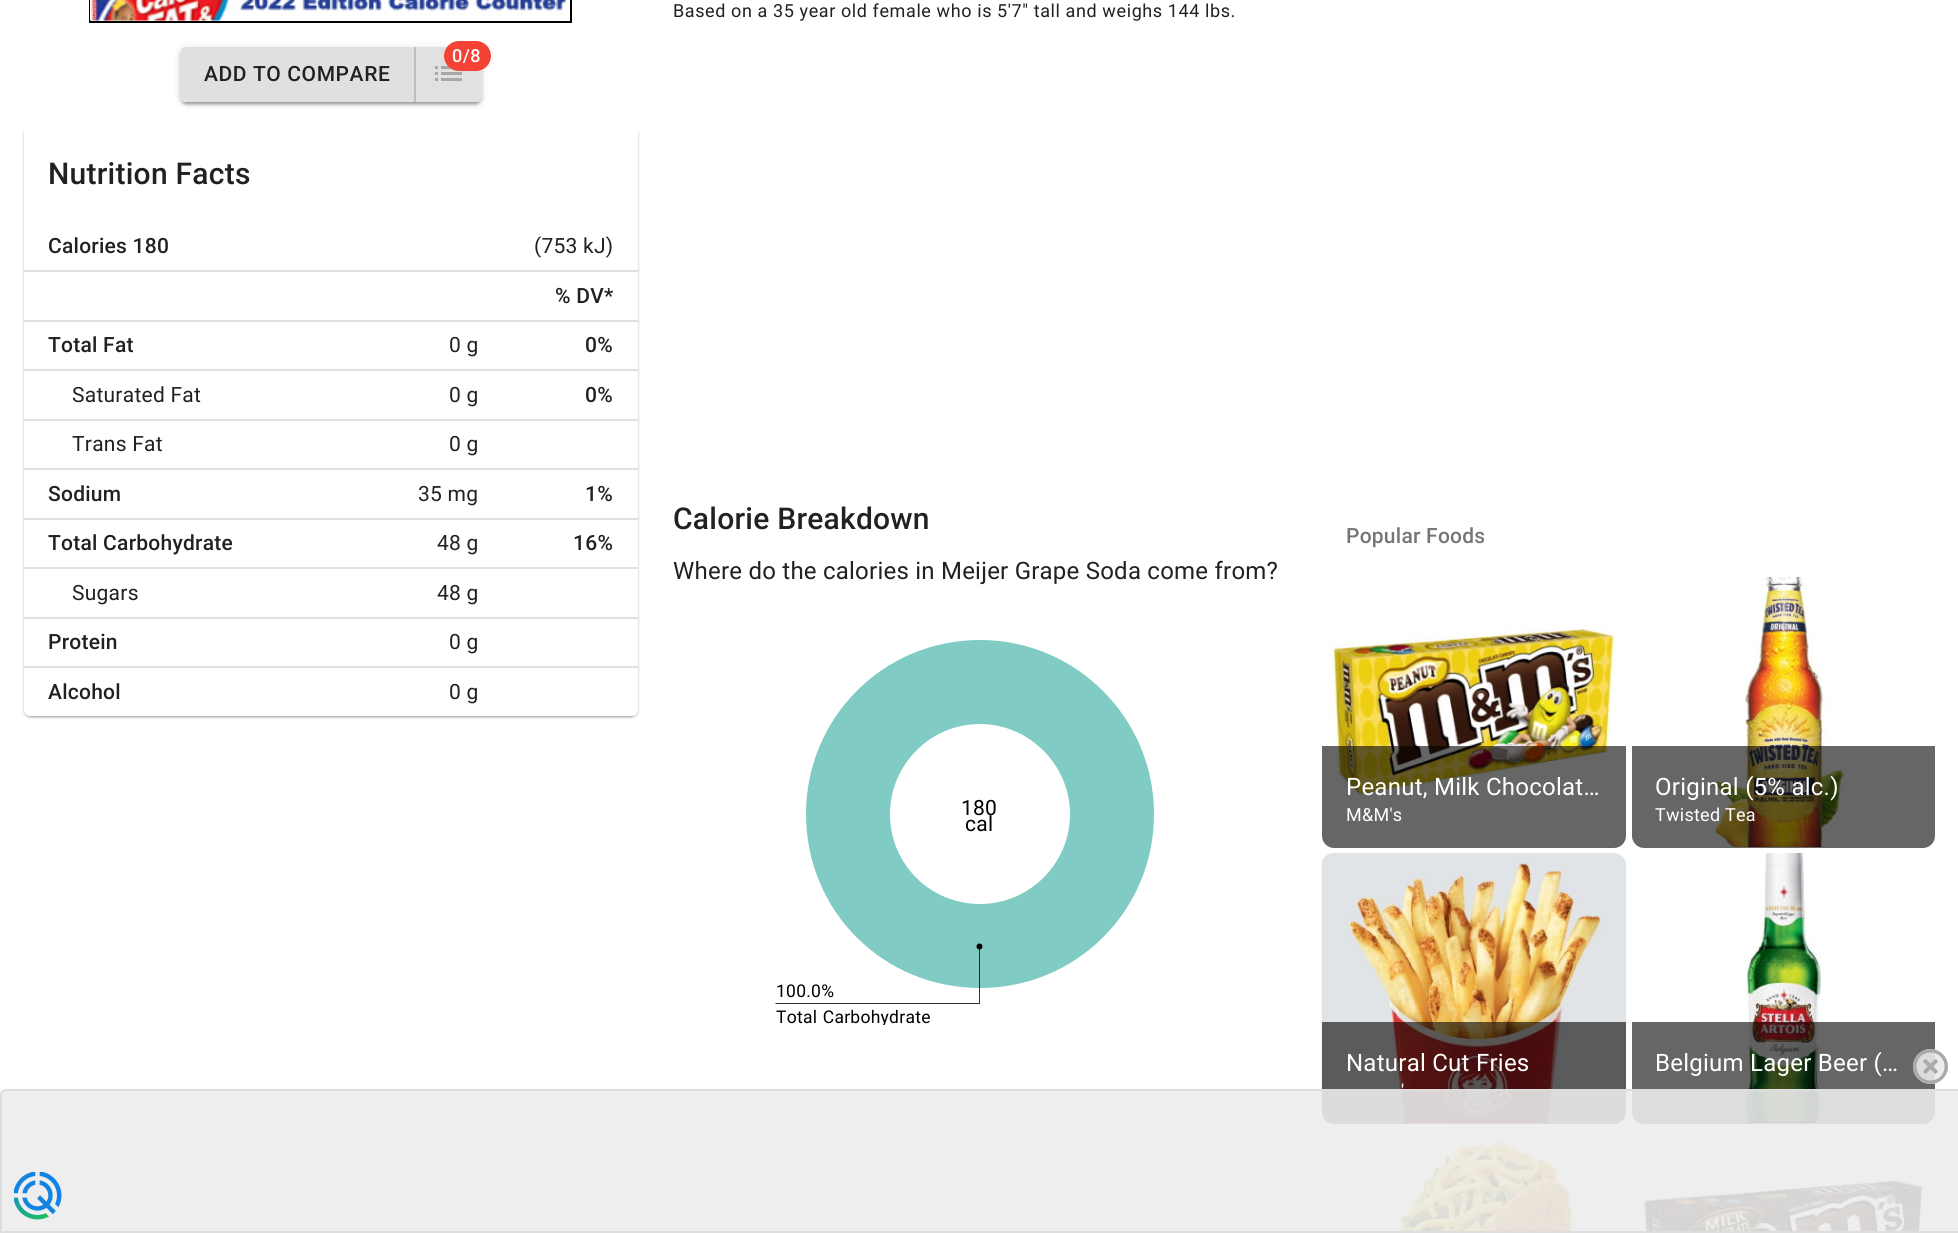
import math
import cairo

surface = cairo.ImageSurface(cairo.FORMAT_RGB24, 1958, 1233)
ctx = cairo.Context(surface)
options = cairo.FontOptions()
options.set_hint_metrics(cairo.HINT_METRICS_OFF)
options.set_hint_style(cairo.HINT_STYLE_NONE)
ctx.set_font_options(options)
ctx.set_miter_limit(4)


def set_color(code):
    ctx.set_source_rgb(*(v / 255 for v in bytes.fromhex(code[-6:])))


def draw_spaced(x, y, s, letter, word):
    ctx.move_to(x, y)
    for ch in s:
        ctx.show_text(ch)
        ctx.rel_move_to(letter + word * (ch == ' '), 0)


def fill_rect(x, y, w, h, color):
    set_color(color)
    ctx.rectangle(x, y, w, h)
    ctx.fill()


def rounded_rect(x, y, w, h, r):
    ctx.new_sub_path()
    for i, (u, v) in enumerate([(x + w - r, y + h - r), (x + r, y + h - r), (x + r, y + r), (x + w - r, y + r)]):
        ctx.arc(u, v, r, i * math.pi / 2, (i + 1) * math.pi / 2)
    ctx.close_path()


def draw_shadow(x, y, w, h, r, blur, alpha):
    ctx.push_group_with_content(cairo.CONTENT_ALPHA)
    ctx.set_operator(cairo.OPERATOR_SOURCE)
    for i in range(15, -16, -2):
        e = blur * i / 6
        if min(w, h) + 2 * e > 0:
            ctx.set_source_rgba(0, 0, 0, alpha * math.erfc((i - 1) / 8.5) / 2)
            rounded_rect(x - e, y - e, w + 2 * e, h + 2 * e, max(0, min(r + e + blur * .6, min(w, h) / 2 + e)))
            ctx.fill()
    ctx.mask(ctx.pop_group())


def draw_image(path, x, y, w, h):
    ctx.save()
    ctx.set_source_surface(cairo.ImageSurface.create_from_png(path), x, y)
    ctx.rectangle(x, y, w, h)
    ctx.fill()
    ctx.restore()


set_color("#ffffff")
ctx.paint()
ctx.rectangle(90, -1, 481, 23)
set_color("#000000")
ctx.stroke()
draw_image("assets/img1.png", 90, 0, 477, 21)
ctx.save()
ctx.set_fill_rule(cairo.FILL_RULE_EVEN_ODD)
ctx.new_path()
ctx.move_to(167, 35)
ctx.line_to(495, 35)
ctx.line_to(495, 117)
ctx.line_to(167, 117)
ctx.close_path()
ctx.move_to(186, 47)
ctx.line_to(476, 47)
ctx.curve_to(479.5, 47, 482, 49.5, 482, 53)
ctx.line_to(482, 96)
ctx.curve_to(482, 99.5, 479.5, 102, 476, 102)
ctx.line_to(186, 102)
ctx.curve_to(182.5, 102, 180, 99.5, 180, 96)
ctx.line_to(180, 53)
ctx.curve_to(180, 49.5, 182.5, 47, 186, 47)
ctx.close_path()
ctx.clip()
set_color("#000000")
draw_shadow(180, 48, 302, 56, 6, 4, 0.12)
ctx.restore()
ctx.save()
ctx.set_fill_rule(cairo.FILL_RULE_EVEN_ODD)
ctx.new_path()
ctx.move_to(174, 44)
ctx.line_to(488, 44)
ctx.line_to(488, 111)
ctx.line_to(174, 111)
ctx.close_path()
ctx.move_to(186, 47)
ctx.line_to(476, 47)
ctx.curve_to(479.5, 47, 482, 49.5, 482, 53)
ctx.line_to(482, 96)
ctx.curve_to(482, 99.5, 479.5, 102, 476, 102)
ctx.line_to(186, 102)
ctx.curve_to(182.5, 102, 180, 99.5, 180, 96)
ctx.line_to(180, 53)
ctx.curve_to(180, 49.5, 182.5, 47, 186, 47)
ctx.close_path()
ctx.clip()
set_color("#000000")
draw_shadow(180, 50, 302, 55, 6, 1.5, 0.14)
ctx.restore()
ctx.save()
ctx.set_fill_rule(cairo.FILL_RULE_EVEN_ODD)
ctx.new_path()
ctx.move_to(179, 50)
ctx.line_to(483, 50)
ctx.line_to(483, 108)
ctx.line_to(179, 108)
ctx.close_path()
ctx.move_to(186, 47)
ctx.line_to(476, 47)
ctx.curve_to(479.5, 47, 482, 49.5, 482, 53)
ctx.line_to(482, 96)
ctx.curve_to(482, 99.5, 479.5, 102, 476, 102)
ctx.line_to(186, 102)
ctx.curve_to(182.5, 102, 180, 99.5, 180, 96)
ctx.line_to(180, 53)
ctx.curve_to(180, 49.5, 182.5, 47, 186, 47)
ctx.close_path()
ctx.clip()
set_color("#000000")
draw_shadow(183, 54, 296, 50, 3, 1, 0.2)
ctx.restore()
ctx.set_source_rgba(0, 0, 0, 0.12)
ctx.new_path()
ctx.move_to(416, 47)
ctx.line_to(476, 47)
ctx.curve_to(479.5, 47, 482, 49.5, 482, 53)
ctx.line_to(482, 96)
ctx.curve_to(482, 99.5, 479.5, 102, 476, 102)
ctx.line_to(416, 102)
ctx.close_path()
ctx.fill()
draw_image("assets/img2.png", 435, 66, 27, 15)
set_color("#f44336")
rounded_rect(444, 41, 47, 30, 15)
ctx.fill()
ctx.select_font_face("Roboto Medium")
ctx.set_font_size(18)
set_color("#ffffff")
draw_spaced(452, 62, "0/8", 0.5, 0)
set_color("#e0e0e0")
ctx.new_path()
ctx.move_to(186, 47)
ctx.line_to(416, 47)
ctx.line_to(416, 102)
ctx.line_to(186, 102)
ctx.curve_to(182.5, 102, 180, 99.5, 180, 96)
ctx.line_to(180, 53)
ctx.curve_to(180, 49.5, 182.5, 47, 186, 47)
ctx.close_path()
ctx.fill()
fill_rect(414, 47, 2, 55, "#bdbdbd")
ctx.set_font_size(21)
set_color("#212121")
draw_spaced(204, 81, "ADD TO COMPARE", 0.6, 0)
set_color("#000000")
draw_shadow(24, 128, 614, 589, 6, 2, 0.12)
draw_shadow(24, 128, 614, 589, 6, 1, 0.14)
draw_shadow(26, 131, 610, 586, 5, 1, 0.2)
set_color("#ffffff")
rounded_rect(24, 126, 614, 590, 6)
ctx.fill()
ctx.set_font_size(30)
set_color("#212121")
draw_spaced(48, 184, "Nutrition Facts", 0.25, 0)
ctx.set_font_size(21)
draw_spaced(48, 253, "Calories 180", 0.25, 0)
fill_rect(24, 270, 614, 2, "#e0e0e0")
ctx.select_font_face("Roboto")
set_color("#212121")
draw_spaced(534, 253, "(753 kJ)", 0.25, 0)
fill_rect(24, 320, 614, 2, "#e0e0e0")
ctx.select_font_face("Roboto Medium")
set_color("#212121")
draw_spaced(555, 303, "% DV*", 0.25, 0)
draw_spaced(48, 352, "Total Fat", 0.25, 0)
ctx.select_font_face("Roboto")
draw_spaced(449, 352, "0 g", 0.25, 0)
fill_rect(24, 369, 614, 2, "#e0e0e0")
ctx.select_font_face("Roboto Medium")
set_color("#212121")
draw_spaced(585, 352, "0%", 0.25, 0)
ctx.select_font_face("Roboto")
draw_spaced(72, 402, "Saturated Fat", 0.25, 0)
draw_spaced(449, 402, "0 g", 0.25, 0)
fill_rect(24, 419, 614, 2, "#e0e0e0")
ctx.select_font_face("Roboto Medium")
set_color("#212121")
draw_spaced(585, 402, "0%", 0.25, 0)
ctx.select_font_face("Roboto")
draw_spaced(72, 451, "Trans Fat", 0.25, 0)
draw_spaced(449, 451, "0 g", 0.25, 0)
fill_rect(24, 468, 614, 2, "#e0e0e0")
ctx.select_font_face("Roboto Medium")
set_color("#212121")
draw_spaced(48, 501, "Sodium", 0.25, 0)
ctx.select_font_face("Roboto")
draw_spaced(418, 501, "35 mg", 0.25, 0)
fill_rect(24, 518, 614, 2, "#e0e0e0")
ctx.select_font_face("Roboto Medium")
set_color("#212121")
draw_spaced(585, 501, "1%", 0.25, 0)
draw_spaced(48, 550, "Total Carbohydrate", 0.25, 0)
ctx.select_font_face("Roboto")
draw_spaced(437, 550, "48 g", 0.25, 0)
fill_rect(24, 567, 614, 2, "#e0e0e0")
ctx.select_font_face("Roboto Medium")
set_color("#212121")
draw_spaced(573, 550, "16%", 0.25, 0)
ctx.select_font_face("Roboto")
draw_spaced(72, 600, "Sugars", 0.25, 0)
draw_spaced(437, 600, "48 g", 0.25, 0)
fill_rect(24, 617, 614, 2, "#e0e0e0")
ctx.select_font_face("Roboto Medium")
set_color("#212121")
draw_spaced(48, 649, "Protein", 0.25, 0)
ctx.select_font_face("Roboto")
draw_spaced(449, 649, "0 g", 0.25, 0)
fill_rect(24, 666, 614, 2, "#e0e0e0")
ctx.select_font_face("Roboto Medium")
set_color("#212121")
draw_spaced(48, 699, "Alcohol", 0.25, 0)
ctx.select_font_face("Roboto")
draw_spaced(449, 699, "0 g", 0.25, 0)
ctx.set_font_size(18)
draw_spaced(673, 17, "Based on a 35 year old female who is 5'7\" tall and weighs 144 lbs.", 0.6, 0)
ctx.select_font_face("Roboto Medium")
ctx.set_font_size(30)
draw_spaced(673, 529, "Calorie Breakdown", 0.25, 0)
ctx.select_font_face("Roboto")
ctx.set_font_size(24)
draw_spaced(673, 579, "Where do the calories in Meijer Grape Soda come from?", 0.23, 0)
set_color("#80cbc4")
ctx.new_path()
ctx.move_to(980, 640)
ctx.curve_to(1076, 640, 1154, 718, 1154, 814)
ctx.curve_to(1154, 911, 1076, 988, 980, 988)
ctx.curve_to(883, 988, 806, 911, 806, 814)
ctx.curve_to(806, 718, 883, 640, 980, 640)
ctx.move_to(980, 724)
ctx.curve_to(930, 724, 890, 765, 890, 814)
ctx.curve_to(890, 864, 930, 904, 980, 904)
ctx.curve_to(1029, 904, 1070, 864, 1070, 814)
ctx.curve_to(1070, 765, 1029, 724, 980, 724)
ctx.close_path()
ctx.fill()
ctx.new_path()
ctx.move_to(979.5, 946.5)
ctx.line_to(979.5, 1003.5)
ctx.line_to(775.5, 1003.5)
set_color("#000000")
ctx.set_line_width(0.8)
ctx.stroke()
ctx.arc(979.5, 946.5, 3, 0, 2 * math.pi)
ctx.fill()
ctx.set_font_size(21)
draw_spaced(961, 815, "180", 0.25, 0)
draw_spaced(965, 831, "cal", 0.25, 0)
ctx.set_font_size(17.5)
draw_spaced(776, 997, "100.0%", 0.25, 0)
ctx.save()
ctx.rectangle(755, 599, 450, 426)
ctx.clip()
draw_spaced(776, 1023, "Total Carbohydrate", 0.25, 1)
ctx.restore()
ctx.select_font_face("Roboto Medium")
ctx.set_font_size(21)
set_color("#757575")
draw_spaced(1346, 543, "Popular Foods", 0.25, 0)
draw_image("assets/img3.png", 1329, 628, 289, 167)
ctx.set_source_rgba(0, 0, 0, 0.6)
ctx.new_path()
ctx.move_to(1322, 746)
ctx.line_to(1626, 746)
ctx.line_to(1626, 836)
ctx.curve_to(1626, 842.5, 1620.5, 848, 1614, 848)
ctx.line_to(1334, 848)
ctx.curve_to(1327.5, 848, 1322, 842.5, 1322, 836)
ctx.close_path()
ctx.fill()
ctx.select_font_face("Roboto")
ctx.set_font_size(24)
set_color("#ffffff")
draw_spaced(1346, 795, "Peanut, Milk Chocolat…", 0.25, 0)
ctx.set_font_size(18)
draw_spaced(1346, 821, "M&M's", 0.25, 0)
draw_image("assets/img4.png", 1707, 577, 138, 270)
ctx.set_source_rgba(0, 0, 0, 0.6)
ctx.new_path()
ctx.move_to(1632, 746)
ctx.line_to(1935, 746)
ctx.line_to(1935, 836)
ctx.curve_to(1935, 842.5, 1929.5, 848, 1923, 848)
ctx.line_to(1644, 848)
ctx.curve_to(1637.5, 848, 1632, 842.5, 1632, 836)
ctx.close_path()
ctx.fill()
ctx.set_font_size(24)
set_color("#ffffff")
draw_spaced(1655, 795, "Original (5% alc.)", 0.25, 0)
ctx.set_font_size(18)
draw_spaced(1655, 821, "Twisted Tea", 0.25, 0)
draw_image("assets/img5.png", 1321, 853, 305, 270)
ctx.set_source_rgba(0, 0, 0, 0.6)
ctx.new_path()
ctx.move_to(1322, 1022)
ctx.line_to(1626, 1022)
ctx.line_to(1626, 1112)
ctx.curve_to(1626, 1118.5, 1620.5, 1124, 1614, 1124)
ctx.line_to(1334, 1124)
ctx.curve_to(1327.5, 1124, 1322, 1118.5, 1322, 1112)
ctx.close_path()
ctx.fill()
ctx.set_font_size(24)
set_color("#ffffff")
draw_spaced(1346, 1071, "Natural Cut Fries", 0.25, 0)
ctx.set_font_size(18)
draw_spaced(1401, 1097, "'", 0.25, 0)
draw_image("assets/img6.png", 1745, 853, 76, 270)
ctx.set_source_rgba(0, 0, 0, 0.6)
ctx.new_path()
ctx.move_to(1632, 1022)
ctx.line_to(1935, 1022)
ctx.line_to(1935, 1112)
ctx.curve_to(1935, 1118.5, 1929.5, 1124, 1923, 1124)
ctx.line_to(1644, 1124)
ctx.curve_to(1637.5, 1124, 1632, 1118.5, 1632, 1112)
ctx.close_path()
ctx.fill()
ctx.set_font_size(24)
set_color("#ffffff")
draw_spaced(1655, 1071, "Belgium Lager Beer (…", 0.25, 0)
draw_image("assets/img7.png", 1396, 1137, 182, 94)
draw_image("assets/img8.png", 1643, 1180, 284, 51)
ctx.set_source_rgba(0.922, 0.922, 0.922, 0.89)
ctx.new_path()
ctx.move_to(6, 1090)
ctx.line_to(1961, 1090)
ctx.line_to(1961, 1232)
ctx.line_to(1, 1232)
ctx.line_to(1, 1095)
ctx.curve_to(1, 1092, 3, 1090, 6, 1090)
ctx.close_path()
ctx.fill_preserve()
set_color("#dddddd")
ctx.set_line_width(2)
ctx.stroke()
draw_image("assets/img9.png", 1913, 1049, 35, 35)
draw_image("assets/img10.png", 14, 1172, 48, 48)
surface.write_to_png("output.png")
